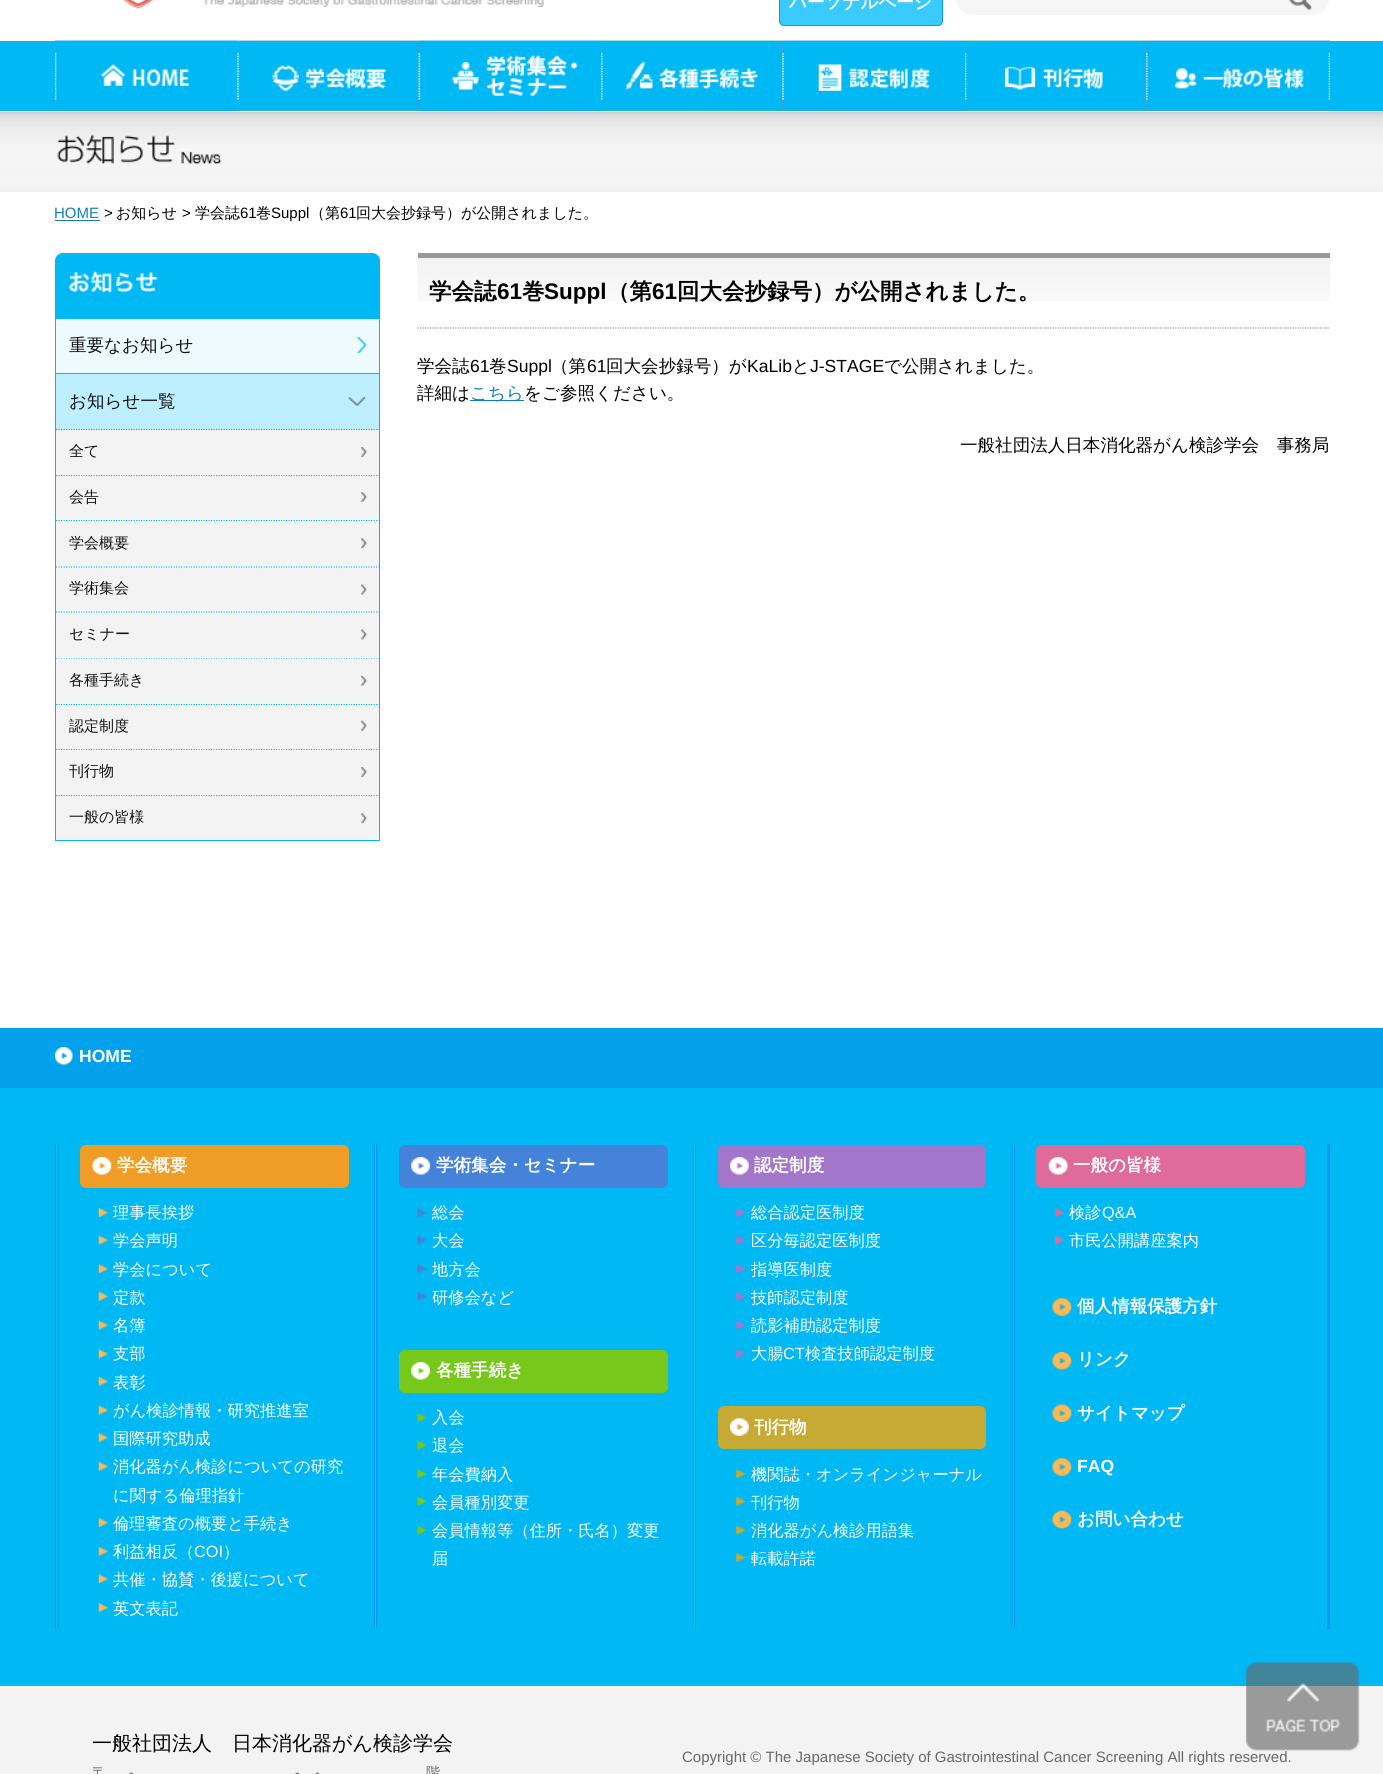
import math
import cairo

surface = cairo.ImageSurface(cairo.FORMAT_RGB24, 1383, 1774)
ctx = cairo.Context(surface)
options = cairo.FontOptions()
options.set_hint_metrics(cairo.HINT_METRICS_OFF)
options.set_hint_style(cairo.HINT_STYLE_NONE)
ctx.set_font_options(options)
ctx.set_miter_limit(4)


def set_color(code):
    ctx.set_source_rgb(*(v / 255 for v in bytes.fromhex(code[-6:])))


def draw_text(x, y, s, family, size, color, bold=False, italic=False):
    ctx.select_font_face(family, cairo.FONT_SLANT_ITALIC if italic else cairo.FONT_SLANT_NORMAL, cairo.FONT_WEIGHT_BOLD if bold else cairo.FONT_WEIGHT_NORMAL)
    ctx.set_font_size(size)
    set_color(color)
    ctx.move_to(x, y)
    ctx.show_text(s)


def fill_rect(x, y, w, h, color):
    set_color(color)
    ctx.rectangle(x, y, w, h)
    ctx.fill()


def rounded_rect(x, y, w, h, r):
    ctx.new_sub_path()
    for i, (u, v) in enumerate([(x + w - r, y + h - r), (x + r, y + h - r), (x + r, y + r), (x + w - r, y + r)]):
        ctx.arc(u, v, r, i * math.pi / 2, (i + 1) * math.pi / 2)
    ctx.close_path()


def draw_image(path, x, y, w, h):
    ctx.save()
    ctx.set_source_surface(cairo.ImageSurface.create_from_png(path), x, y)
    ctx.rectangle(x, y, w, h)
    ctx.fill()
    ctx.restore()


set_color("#ffffff")
ctx.paint()
draw_image("assets/img1.png", 123, 0, 421, 9)
set_color("#39caff")
rounded_rect(779.5, -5.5, 163, 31, 4.5)
ctx.fill_preserve()
set_color("#0f9ada")
ctx.set_line_width(1)
ctx.stroke()
draw_text(789, 8, "パーソナルページ", "WenQuanYi Zen Hei", 17.55, "#ffffff", bold=True)
set_color("#f6f6f6")
rounded_rect(955, -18, 375, 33, 18)
ctx.fill()
draw_image("assets/img2.png", 1288, 0, 24, 10)
fill_rect(0, 41, 1383, 70, "#00b8f4")
draw_image("assets/img3.png", 55, 40, 183, 71)
draw_image("assets/img4.png", 55, 40, 183, 71)
draw_image("assets/img5.png", 237, 40, 182, 71)
draw_image("assets/img6.png", 237, 40, 182, 71)
draw_image("assets/img7.png", 418, 40, 184, 71)
draw_image("assets/img8.png", 418, 40, 184, 71)
draw_image("assets/img9.png", 601, 40, 182, 71)
draw_image("assets/img10.png", 601, 40, 182, 71)
draw_image("assets/img11.png", 782, 40, 183, 71)
draw_image("assets/img12.png", 782, 40, 183, 71)
draw_image("assets/img13.png", 965, 40, 182, 71)
draw_image("assets/img14.png", 965, 40, 182, 71)
draw_image("assets/img15.png", 1146, 40, 184, 71)
draw_image("assets/img16.png", 1146, 40, 184, 71)
draw_image("assets/img17.png", 0, 112, 1383, 80)
draw_image("assets/img18.png", 57, 134, 165, 30)
draw_text(54, 218, "HOME", "Liberation Sans", 15, "#107ebd")
fill_rect(55, 220, 45, 1, "#107ebd")
draw_text(104, 218, ">", "Liberation Sans", 15, "#000000")
draw_text(116, 218, "お知らせ", "WenQuanYi Zen Hei Medium", 15, "#000000")
draw_text(182, 218, ">", "Liberation Sans", 15, "#000000")
draw_text(195, 218, "学会誌", "WenQuanYi Zen Hei Medium", 15, "#000000")
draw_text(240, 218, "61", "Liberation Sans", 15, "#000000")
draw_text(256, 218, "巻", "WenQuanYi Zen Hei Medium", 15, "#000000")
draw_text(271, 218, "Suppl", "Liberation Sans", 15, "#000000")
draw_text(310, 218, "（第", "WenQuanYi Zen Hei Medium", 15, "#000000")
draw_text(340, 218, "61", "Liberation Sans", 15, "#000000")
draw_text(356, 218, "回大会抄録号）が公開されました。", "WenQuanYi Zen Hei Medium", 15, "#000000")
set_color("#00b8f4")
ctx.new_path()
ctx.move_to(63, 253)
ctx.line_to(372, 253)
ctx.curve_to(376.5, 253, 380, 256.5, 380, 261)
ctx.line_to(380, 318)
ctx.line_to(55, 318)
ctx.line_to(55, 261)
ctx.curve_to(55, 256.5, 58.5, 253, 63, 253)
ctx.close_path()
ctx.fill()
draw_image("assets/img19.png", 68, 270, 90, 23)
ctx.rectangle(55.5, 318.5, 324, 55)
ctx.stroke()
fill_rect(56, 319, 323, 54, "#edfbff")
draw_image("assets/img20.png", 357, 337, 10, 17)
draw_text(69, 351, "重要なお知らせ", "WenQuanYi Zen Hei Medium", 17.55, "#101111")
ctx.rectangle(55.5, 373.5, 324, 467)
set_color("#00b8f4")
ctx.stroke()
fill_rect(56, 374, 323, 56, "#beefff")
draw_image("assets/img21.png", 348, 397, 18, 9)
ctx.new_path()
ctx.move_to(56, 429.5)
ctx.line_to(379, 429.5)
set_color("#00b8f4")
ctx.set_line_width(1.2)
ctx.set_dash([1.25, 1.25])
ctx.stroke()
draw_text(69, 407, "お知らせ一覧", "WenQuanYi Zen Hei Medium", 17.55, "#101111")
ctx.new_path()
ctx.move_to(56, 475.5)
ctx.line_to(379, 475.5)
set_color("#00b8f4")
ctx.stroke()
fill_rect(56, 430, 323, 45, "#f3f3f3")
draw_image("assets/img22.png", 361, 447, 6, 10)
draw_text(69, 456, "全て", "WenQuanYi Zen Hei Medium", 15, "#101111")
ctx.new_path()
ctx.move_to(56, 520.5)
ctx.line_to(379, 520.5)
set_color("#00b8f4")
ctx.stroke()
fill_rect(56, 476, 323, 44, "#f3f3f3")
draw_image("assets/img22.png", 361, 492, 6, 10)
draw_text(69, 502, "会告", "WenQuanYi Zen Hei Medium", 15, "#101111")
ctx.new_path()
ctx.move_to(56, 567)
ctx.line_to(379, 567)
set_color("#00b8f4")
ctx.stroke()
fill_rect(56, 521, 323, 45, "#f3f3f3")
draw_image("assets/img23.png", 361, 538, 6, 11)
draw_text(69, 548, "学会概要", "WenQuanYi Zen Hei Medium", 15, "#101111")
ctx.new_path()
ctx.move_to(56, 612)
ctx.line_to(379, 612)
set_color("#00b8f4")
ctx.stroke()
fill_rect(56, 568, 323, 43, "#f3f3f3")
draw_image("assets/img24.png", 361, 584, 6, 11)
draw_text(69, 593, "学術集会", "WenQuanYi Zen Hei Medium", 15, "#101111")
ctx.new_path()
ctx.move_to(56, 658)
ctx.line_to(379, 658)
set_color("#00b8f4")
ctx.stroke()
fill_rect(56, 613, 323, 45, "#f3f3f3")
draw_image("assets/img24.png", 361, 629, 6, 11)
draw_text(69, 639, "セミナー", "WenQuanYi Zen Hei Medium", 15, "#101111")
ctx.new_path()
ctx.move_to(56, 704.5)
ctx.line_to(379, 704.5)
set_color("#00b8f4")
ctx.stroke()
fill_rect(56, 659, 323, 45, "#f3f3f3")
draw_image("assets/img25.png", 361, 675, 6, 11)
draw_text(69, 685, "各種手続き", "WenQuanYi Zen Hei Medium", 15, "#101111")
ctx.new_path()
ctx.move_to(56, 749.5)
ctx.line_to(379, 749.5)
set_color("#00b8f4")
ctx.stroke()
fill_rect(56, 705, 323, 44, "#f3f3f3")
draw_image("assets/img26.png", 361, 720, 6, 11)
draw_text(69, 731, "認定制度", "WenQuanYi Zen Hei Medium", 15, "#101111")
ctx.new_path()
ctx.move_to(56, 795.5)
ctx.line_to(379, 795.5)
set_color("#00b8f4")
ctx.stroke()
fill_rect(56, 750, 323, 45, "#f3f3f3")
draw_image("assets/img22.png", 361, 767, 6, 10)
draw_text(69, 776, "刊行物", "WenQuanYi Zen Hei Medium", 15, "#101111")
fill_rect(56, 796, 323, 44, "#f3f3f3")
draw_image("assets/img23.png", 361, 813, 6, 11)
draw_text(69, 822, "一般の皆様", "WenQuanYi Zen Hei Medium", 15, "#101111")
draw_image("assets/img27.png", 417, 257, 913, 44)
fill_rect(418, 253, 912, 5, "#999999")
ctx.new_path()
ctx.move_to(417.5, 328)
ctx.line_to(1330, 328)
set_color("#9a9a9a")
ctx.stroke()
draw_text(429, 299, "学会誌", "WenQuanYi Zen Hei", 22.5, "#000000", bold=True)
draw_text(497, 299, "61", "Liberation Sans", 22.5, "#000000", bold=True)
draw_text(522, 299, "巻", "WenQuanYi Zen Hei", 22.5, "#000000", bold=True)
draw_text(544, 299, "Suppl", "Liberation Sans", 22.5, "#000000", bold=True)
draw_text(607, 299, "（第", "WenQuanYi Zen Hei", 22.5, "#000000", bold=True)
draw_text(652, 299, "61", "Liberation Sans", 22.5, "#000000", bold=True)
draw_text(677, 299, "回大会抄録号）が公開されました。", "WenQuanYi Zen Hei", 22.5, "#000000", bold=True)
draw_text(417, 372, "学会誌", "WenQuanYi Zen Hei Medium", 17.55, "#000000")
draw_text(470, 372, "61", "Liberation Sans", 17.55, "#000000")
draw_text(489, 372, "巻", "WenQuanYi Zen Hei Medium", 17.55, "#000000")
draw_text(507, 372, "Suppl", "Liberation Sans", 17.55, "#000000")
draw_text(551, 372, "（第", "WenQuanYi Zen Hei Medium", 17.55, "#000000")
draw_text(587, 372, "61", "Liberation Sans", 17.55, "#000000")
draw_text(606, 372, "回大会抄録号）が", "WenQuanYi Zen Hei Medium", 17.55, "#000000")
draw_text(747, 372, "KaLib", "Liberation Sans", 17.55, "#000000")
draw_text(792, 372, "と", "WenQuanYi Zen Hei Medium", 17.55, "#000000")
draw_text(810, 372, "J-STAGE", "Liberation Sans", 17.55, "#000000")
draw_text(884, 372, "で公開されました。", "WenQuanYi Zen Hei Medium", 17.55, "#000000")
draw_text(417, 399, "詳細は", "WenQuanYi Zen Hei Medium", 17.55, "#000000")
fill_rect(470, 400, 54, 1, "#107ebd")
draw_text(470, 399, "こちら", "WenQuanYi Zen Hei Medium", 17.55, "#107ebd")
draw_text(524, 399, "をご参照ください。", "WenQuanYi Zen Hei Medium", 17.55, "#000000")
draw_text(960, 451, "一般社団法人日本消化器がん検診学会　事務局", "WenQuanYi Zen Hei Medium", 17.55, "#000000")
fill_rect(0, 1028, 1383, 60, "#01a1ec")
draw_image("assets/img28.png", 55, 1047, 18, 18)
draw_text(79, 1062, "HOME", "Liberation Sans", 17.55, "#ffffff", bold=True)
fill_rect(0, 1088, 1383, 598, "#00b8f4")
fill_rect(1327, 1144, 3, 485, "#009aed")
draw_image("assets/img29.png", 55, 1144, 4, 484)
set_color("#f09d28")
rounded_rect(80, 1145, 269, 43, 6)
ctx.fill()
draw_image("assets/img30.png", 92, 1157, 20, 18)
draw_text(117, 1171, "学会概要", "WenQuanYi Zen Hei", 17.55, "#ffffff", bold=True)
draw_image("assets/img31.png", 98, 1208, 10, 9)
draw_text(113, 1218, "理事長挨拶", "WenQuanYi Zen Hei Medium", 16.25, "#ffffff")
draw_image("assets/img32.png", 98, 1235, 10, 10)
draw_text(113, 1246, "学会声明", "WenQuanYi Zen Hei Medium", 16.25, "#ffffff")
draw_image("assets/img33.png", 98, 1264, 10, 10)
draw_text(113, 1275, "学会について", "WenQuanYi Zen Hei Medium", 16.25, "#ffffff")
draw_image("assets/img34.png", 98, 1292, 10, 9)
draw_text(113, 1303, "定款", "WenQuanYi Zen Hei Medium", 16.25, "#ffffff")
draw_image("assets/img32.png", 98, 1320, 10, 10)
draw_text(113, 1331, "名簿", "WenQuanYi Zen Hei Medium", 16.25, "#ffffff")
draw_image("assets/img33.png", 98, 1349, 10, 10)
draw_text(113, 1359, "支部", "WenQuanYi Zen Hei Medium", 16.25, "#ffffff")
draw_image("assets/img34.png", 98, 1377, 10, 9)
draw_text(113, 1388, "表彰", "WenQuanYi Zen Hei Medium", 16.25, "#ffffff")
draw_image("assets/img32.png", 98, 1405, 10, 10)
draw_text(113, 1416, "がん検診情報・研究推進室", "WenQuanYi Zen Hei Medium", 16.25, "#ffffff")
draw_image("assets/img31.png", 98, 1433, 10, 9)
draw_text(113, 1444, "国際研究助成", "WenQuanYi Zen Hei Medium", 16.25, "#ffffff")
draw_image("assets/img35.png", 98, 1462, 10, 9)
draw_text(113, 1472, "消化器がん検診についての研究", "WenQuanYi Zen Hei Medium", 16.25, "#ffffff")
draw_text(113, 1501, "に関する倫理指針", "WenQuanYi Zen Hei Medium", 16.25, "#ffffff")
draw_image("assets/img31.png", 98, 1518, 10, 9)
draw_text(113, 1529, "倫理審査の概要と手続き", "WenQuanYi Zen Hei Medium", 16.25, "#ffffff")
draw_image("assets/img34.png", 98, 1547, 10, 9)
draw_text(113, 1557, "利益相反（", "WenQuanYi Zen Hei Medium", 16.25, "#ffffff")
draw_text(194, 1557, "COI", "Liberation Sans", 16.25, "#ffffff")
draw_text(223, 1557, "）", "WenQuanYi Zen Hei Medium", 16.25, "#ffffff")
draw_image("assets/img33.png", 98, 1574, 10, 10)
draw_text(113, 1585, "共催・協賛・後援について", "WenQuanYi Zen Hei Medium", 16.25, "#ffffff")
draw_image("assets/img31.png", 98, 1603, 10, 9)
draw_text(113, 1614, "英文表記", "WenQuanYi Zen Hei Medium", 16.25, "#ffffff")
draw_image("assets/img36.png", 374, 1144, 4, 484)
set_color("#4483d9")
rounded_rect(399, 1145, 269, 43, 6)
ctx.fill()
draw_image("assets/img37.png", 411, 1157, 19, 18)
draw_text(436, 1171, "学術集会・セミナー", "WenQuanYi Zen Hei", 17.55, "#ffffff", bold=True)
draw_image("assets/img38.png", 417, 1208, 10, 9)
draw_text(432, 1218, "総会", "WenQuanYi Zen Hei Medium", 16.25, "#ffffff")
draw_image("assets/img39.png", 417, 1235, 10, 10)
draw_text(432, 1246, "大会", "WenQuanYi Zen Hei Medium", 16.25, "#ffffff")
draw_image("assets/img40.png", 417, 1264, 10, 10)
draw_text(432, 1275, "地方会", "WenQuanYi Zen Hei Medium", 16.25, "#ffffff")
draw_image("assets/img41.png", 417, 1292, 10, 9)
draw_text(432, 1303, "研修会など", "WenQuanYi Zen Hei Medium", 16.25, "#ffffff")
set_color("#78c81b")
rounded_rect(399, 1350, 269, 43, 6)
ctx.fill()
draw_image("assets/img42.png", 411, 1362, 19, 18)
draw_text(436, 1376, "各種手続き", "WenQuanYi Zen Hei", 17.55, "#ffffff", bold=True)
draw_image("assets/img43.png", 417, 1413, 10, 9)
draw_text(432, 1423, "入会", "WenQuanYi Zen Hei Medium", 16.25, "#ffffff")
draw_image("assets/img44.png", 417, 1440, 10, 10)
draw_text(432, 1451, "退会", "WenQuanYi Zen Hei Medium", 16.25, "#ffffff")
draw_image("assets/img45.png", 417, 1469, 10, 10)
draw_text(432, 1480, "年会費納入", "WenQuanYi Zen Hei Medium", 16.25, "#ffffff")
draw_image("assets/img46.png", 417, 1497, 10, 9)
draw_text(432, 1508, "会員種別変更", "WenQuanYi Zen Hei Medium", 16.25, "#ffffff")
draw_image("assets/img44.png", 417, 1525, 10, 10)
draw_text(432, 1536, "会員情報等（住所・氏名）変更", "WenQuanYi Zen Hei Medium", 16.25, "#ffffff")
draw_text(432, 1564, "届", "WenQuanYi Zen Hei Medium", 16.25, "#ffffff")
draw_image("assets/img47.png", 692, 1144, 4, 484)
set_color("#a277cb")
rounded_rect(718, 1145, 268, 43, 6)
ctx.fill()
draw_image("assets/img48.png", 730, 1157, 19, 18)
draw_text(754, 1171, "認定制度", "WenQuanYi Zen Hei", 17.55, "#ffffff", bold=True)
draw_image("assets/img49.png", 736, 1208, 9, 9)
draw_text(751, 1218, "総合認定医制度", "WenQuanYi Zen Hei Medium", 16.25, "#ffffff")
draw_image("assets/img50.png", 736, 1235, 9, 10)
draw_text(751, 1246, "区分毎認定医制度", "WenQuanYi Zen Hei Medium", 16.25, "#ffffff")
draw_image("assets/img51.png", 736, 1264, 9, 10)
draw_text(751, 1275, "指導医制度", "WenQuanYi Zen Hei Medium", 16.25, "#ffffff")
draw_image("assets/img52.png", 736, 1292, 9, 9)
draw_text(751, 1303, "技師認定制度", "WenQuanYi Zen Hei Medium", 16.25, "#ffffff")
draw_image("assets/img50.png", 736, 1320, 9, 10)
draw_text(751, 1331, "読影補助認定制度", "WenQuanYi Zen Hei Medium", 16.25, "#ffffff")
draw_image("assets/img51.png", 736, 1349, 9, 10)
draw_text(751, 1359, "大腸", "WenQuanYi Zen Hei Medium", 16.25, "#ffffff")
draw_text(783, 1359, "CT", "Liberation Sans", 16.25, "#ffffff")
draw_text(805, 1359, "検査技師認定制度", "WenQuanYi Zen Hei Medium", 16.25, "#ffffff")
set_color("#c7aa34")
rounded_rect(718, 1406, 268, 43, 6)
ctx.fill()
draw_image("assets/img53.png", 730, 1418, 19, 18)
draw_text(754, 1433, "刊行物", "WenQuanYi Zen Hei", 17.55, "#ffffff", bold=True)
draw_image("assets/img54.png", 736, 1469, 9, 10)
draw_text(751, 1480, "機関誌・オンラインジャーナル", "WenQuanYi Zen Hei Medium", 16.25, "#ffffff")
draw_image("assets/img55.png", 736, 1497, 9, 9)
draw_text(751, 1508, "刊行物", "WenQuanYi Zen Hei Medium", 16.25, "#ffffff")
draw_image("assets/img56.png", 736, 1525, 9, 10)
draw_text(751, 1536, "消化器がん検診用語集", "WenQuanYi Zen Hei Medium", 16.25, "#ffffff")
draw_image("assets/img57.png", 736, 1553, 9, 9)
draw_text(751, 1564, "転載許諾", "WenQuanYi Zen Hei Medium", 16.25, "#ffffff")
draw_image("assets/img58.png", 1011, 1144, 4, 484)
set_color("#de6b99")
rounded_rect(1036, 1145, 269, 43, 6)
ctx.fill()
draw_image("assets/img59.png", 1048, 1157, 20, 18)
draw_text(1073, 1171, "一般の皆様", "WenQuanYi Zen Hei", 17.55, "#ffffff", bold=True)
draw_image("assets/img60.png", 1055, 1208, 9, 9)
draw_text(1069, 1218, "検診", "WenQuanYi Zen Hei Medium", 16.25, "#ffffff")
draw_text(1102, 1218, "Q&A", "Liberation Sans", 16.25, "#ffffff")
draw_image("assets/img61.png", 1055, 1235, 9, 10)
draw_text(1069, 1246, "市民公開講座案内", "WenQuanYi Zen Hei Medium", 16.25, "#ffffff")
draw_image("assets/img62.png", 1052, 1298, 20, 18)
draw_text(1077, 1312, "個人情報保護方針", "WenQuanYi Zen Hei", 17.55, "#ffffff", bold=True)
draw_image("assets/img63.png", 1052, 1352, 20, 18)
draw_text(1077, 1365, "リンク", "WenQuanYi Zen Hei", 17.55, "#ffffff", bold=True)
draw_image("assets/img64.png", 1052, 1404, 20, 18)
draw_text(1077, 1419, "サイトマップ", "WenQuanYi Zen Hei", 17.55, "#ffffff", bold=True)
draw_image("assets/img65.png", 1052, 1458, 20, 18)
draw_text(1077, 1472, "FAQ", "Liberation Sans", 17.55, "#ffffff", bold=True)
draw_image("assets/img66.png", 1052, 1510, 20, 19)
draw_text(1077, 1525, "お問い合わせ", "WenQuanYi Zen Hei", 17.55, "#ffffff", bold=True)
fill_rect(0, 1686, 1383, 88, "#f3f3f3")
draw_text(92, 1750, "一般社団法人　日本消化器がん検診学会", "WenQuanYi Zen Hei Medium", 20, "#000000")
ctx.save()
ctx.rectangle(93, 1686, 1200, 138)
ctx.clip()
draw_text(92, 1777, "〒", "WenQuanYi Zen Hei Medium", 14, "#686868")
ctx.restore()
draw_text(129, 1777, "-", "Liberation Sans", 14, "#686868")
draw_text(295, 1777, "-", "Liberation Sans", 14, "#686868")
draw_text(315, 1777, "-", "Liberation Sans", 14, "#686868")
draw_text(426, 1777, "階", "WenQuanYi Zen Hei Medium", 14, "#686868")
draw_text(682, 1762, "Copyright © The Japanese Society of Gastrointestinal Cancer Screening All rights reserved.", "Liberation Sans", 15, "#686868")
draw_image("assets/img67.png", 1246, 1662, 114, 89)
surface.write_to_png("output.png")
